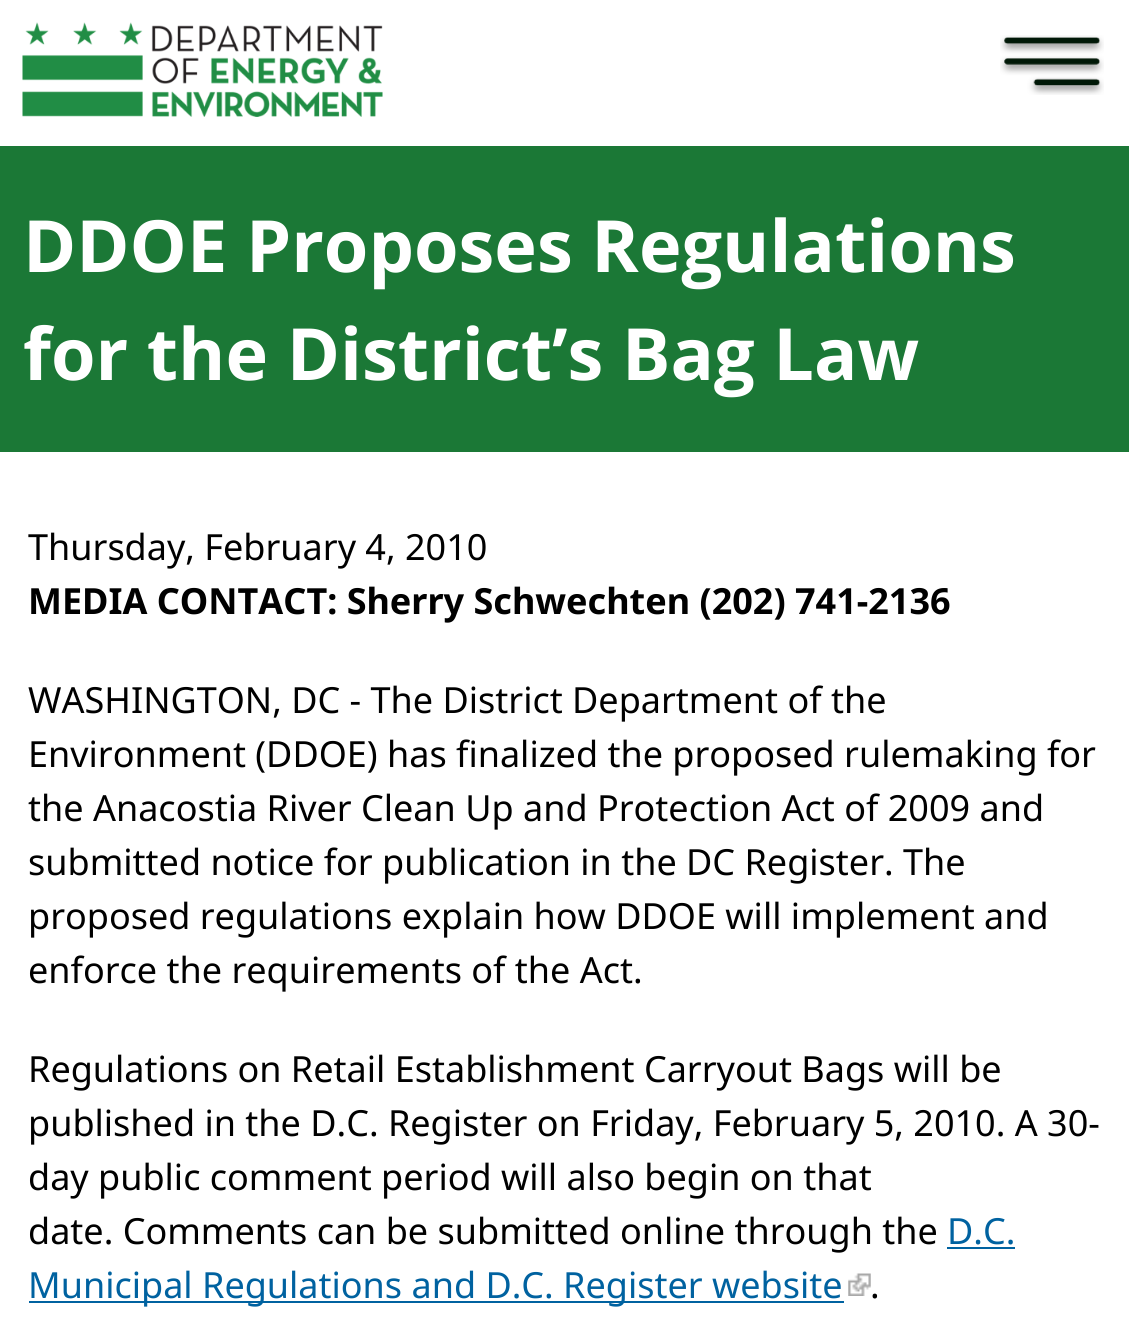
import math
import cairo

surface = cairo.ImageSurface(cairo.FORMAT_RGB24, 1129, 1342)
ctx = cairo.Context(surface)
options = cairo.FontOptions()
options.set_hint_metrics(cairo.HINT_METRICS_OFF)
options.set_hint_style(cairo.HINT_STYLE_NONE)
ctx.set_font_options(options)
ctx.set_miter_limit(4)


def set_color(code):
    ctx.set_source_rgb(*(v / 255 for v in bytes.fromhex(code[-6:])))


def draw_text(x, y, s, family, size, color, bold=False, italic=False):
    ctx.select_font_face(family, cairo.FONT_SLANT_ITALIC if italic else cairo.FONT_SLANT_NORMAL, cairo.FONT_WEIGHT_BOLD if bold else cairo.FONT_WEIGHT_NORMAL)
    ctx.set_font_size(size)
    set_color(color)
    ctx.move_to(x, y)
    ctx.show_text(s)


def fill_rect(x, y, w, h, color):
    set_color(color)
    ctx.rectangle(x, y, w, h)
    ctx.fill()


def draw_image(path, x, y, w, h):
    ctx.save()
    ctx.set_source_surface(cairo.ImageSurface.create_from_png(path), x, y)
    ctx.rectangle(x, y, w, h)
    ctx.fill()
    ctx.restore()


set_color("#ffffff")
ctx.paint()
draw_image("assets/img1.png", 22, 22, 361, 95)
draw_image("assets/img2.png", 1000, 35, 104, 60)
fill_rect(0, 146, 1129, 306, "#1b7836")
draw_text(23, 272, "DDOE Proposes Regulations", "Open Sans", 72, "#ffffff", bold=True)
draw_text(23, 380, "for the District’s Bag Law", "Open Sans", 72, "#ffffff", bold=True)
draw_text(28, 560, "Thursday, February 4, 2010", "Noto Sans", 36, "#000000")
draw_text(28, 614, "MEDIA CONTACT: Sherry Schwechten (202) 741-2136", "Noto Sans", 36, "#000000", bold=True)
draw_text(28, 713, "WASHINGTON, DC - The District Department of the", "Noto Sans", 36, "#000000")
draw_text(28, 767, "Environment (DDOE) has finalized the proposed rulemaking for", "Noto Sans", 36, "#000000")
draw_text(28, 821, "the Anacostia River Clean Up and Protection Act of 2009 and", "Noto Sans", 36, "#000000")
draw_text(28, 875, "submitted notice for publication in the DC Register. The", "Noto Sans", 36, "#000000")
draw_text(28, 929, "proposed regulations explain how DDOE will implement and", "Noto Sans", 36, "#000000")
draw_text(28, 983, "enforce the requirements of the Act.", "Noto Sans", 36, "#000000")
draw_text(28, 1082, "Regulations on Retail Establishment Carryout Bags will be", "Noto Sans", 36, "#000000")
draw_text(28, 1136, "published in the D.C. Register on Friday, February 5, 2010. A 30-", "Noto Sans", 36, "#000000")
draw_text(28, 1190, "day public comment period will also begin on that", "Noto Sans", 36, "#000000")
draw_text(28, 1244, "date. Comments can be submitted online through the", "Noto Sans", 36, "#000000")
draw_text(947, 1244, "D.C.", "Noto Sans", 36, "#0062a0")
fill_rect(947, 1247, 68, 2, "#0062a0")
fill_rect(29, 1301, 815, 2, "#0062a0")
draw_text(28, 1298, "Municipal Regulations and D.C. Register website", "Noto Sans", 36, "#0062a0")
draw_image("assets/img3.png", 848, 1273, 23, 23)
draw_text(870, 1298, ".", "Noto Sans", 36, "#000000")
surface.write_to_png("output.png")
